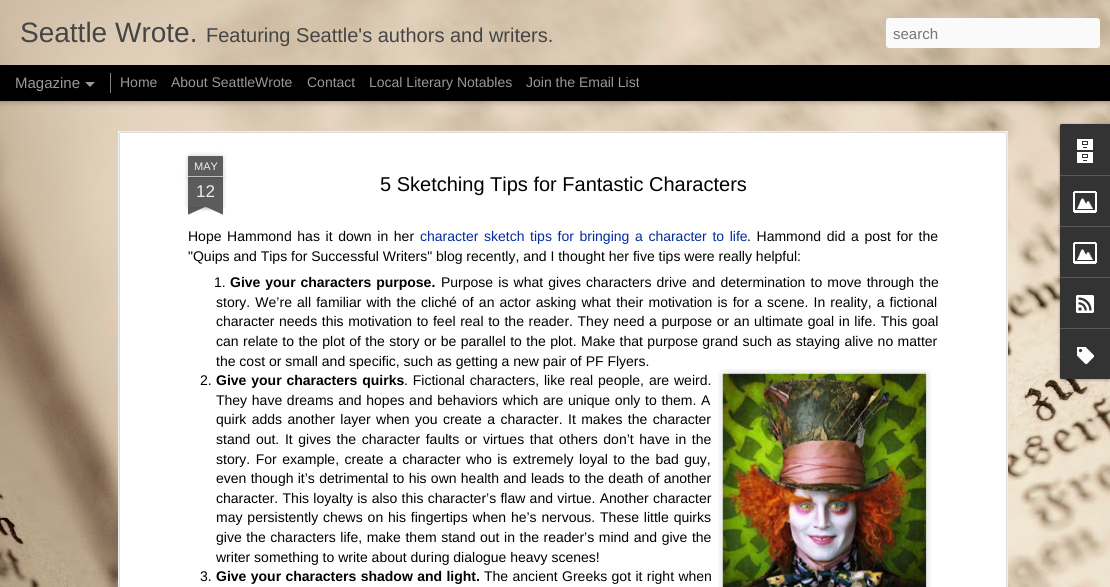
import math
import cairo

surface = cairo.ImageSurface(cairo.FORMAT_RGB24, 1110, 587)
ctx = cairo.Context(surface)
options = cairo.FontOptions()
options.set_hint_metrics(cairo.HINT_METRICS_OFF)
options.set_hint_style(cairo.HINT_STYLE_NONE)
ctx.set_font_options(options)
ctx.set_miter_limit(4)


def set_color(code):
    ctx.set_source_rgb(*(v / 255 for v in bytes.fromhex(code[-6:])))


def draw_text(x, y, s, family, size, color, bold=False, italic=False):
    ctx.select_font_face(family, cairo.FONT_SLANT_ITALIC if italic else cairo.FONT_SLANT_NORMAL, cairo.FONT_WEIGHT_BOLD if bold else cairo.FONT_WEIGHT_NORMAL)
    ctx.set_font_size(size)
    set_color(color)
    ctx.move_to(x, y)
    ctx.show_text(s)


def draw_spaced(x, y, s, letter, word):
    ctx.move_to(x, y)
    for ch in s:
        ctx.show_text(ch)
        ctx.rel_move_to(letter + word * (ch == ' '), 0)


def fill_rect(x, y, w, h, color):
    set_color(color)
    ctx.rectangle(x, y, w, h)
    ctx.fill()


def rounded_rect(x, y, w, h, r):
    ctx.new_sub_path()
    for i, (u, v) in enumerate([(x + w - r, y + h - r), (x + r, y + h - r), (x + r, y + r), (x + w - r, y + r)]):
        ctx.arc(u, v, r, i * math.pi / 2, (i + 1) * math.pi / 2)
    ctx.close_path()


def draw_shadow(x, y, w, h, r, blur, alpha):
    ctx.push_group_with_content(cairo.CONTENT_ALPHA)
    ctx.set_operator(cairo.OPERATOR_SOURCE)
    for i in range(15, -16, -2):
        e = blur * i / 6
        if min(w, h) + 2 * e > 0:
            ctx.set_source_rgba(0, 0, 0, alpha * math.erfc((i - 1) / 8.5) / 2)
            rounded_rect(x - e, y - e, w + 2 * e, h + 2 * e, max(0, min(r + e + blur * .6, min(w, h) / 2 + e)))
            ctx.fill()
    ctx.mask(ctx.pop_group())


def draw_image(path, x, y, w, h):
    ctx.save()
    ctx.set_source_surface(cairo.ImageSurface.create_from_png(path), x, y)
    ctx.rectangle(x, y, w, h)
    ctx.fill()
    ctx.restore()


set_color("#000000")
ctx.paint()
draw_image("assets/img2.png", 0, 101, 1110, 486)
draw_shadow(0, 65, 1110, 35, 0, 4, 0.5)
draw_image("assets/img1.png", 0, 0, 1110, 65)
draw_text(20, 42, "Seattle Wrote.", "Liberation Sans", 28, "#454545")
draw_text(206, 42, "Featuring Seattle's authors and writers.", "Liberation Sans", 20, "#454545")
set_color("#fafafa")
rounded_rect(886, 18, 214, 30, 3)
ctx.fill()
draw_text(893, 39, "search", "Liberation Sans", 15, "#757575")
draw_text(15, 88, "Magazine", "Liberation Sans", 15, "#999999")
ctx.new_path()
ctx.move_to(85, 82)
ctx.line_to(95, 82)
ctx.line_to(90, 87)
ctx.close_path()
ctx.fill()
fill_rect(110, 73, 1, 20, "#808080")
draw_text(120, 87, "Home", "Liberation Sans", 14, "#999999")
draw_text(171, 87, "About SeattleWrote", "Liberation Sans", 14, "#999999")
draw_text(307, 87, "Contact", "Liberation Sans", 14, "#999999")
draw_text(369, 87, "Local Literary Notables", "Liberation Sans", 14, "#999999")
ctx.save()
ctx.rectangle(110, 65, 529, 35)
ctx.clip()
draw_text(526, 87, "Join the Email List", "Liberation Sans", 14, "#999999")
ctx.restore()
fill_rect(118, 131, 890, 456, "#ffffff")
draw_image("assets/img3.png", 118, 131, 890, 456)
set_color("#000000")
draw_shadow(188, 177, 35, 30, 0, 2.5, 0.2)
fill_rect(188, 177, 35, 30, "#5c5c5c")
set_color("#000000")
draw_shadow(188, 156, 35, 21, 1, 2.5, 0.2)
set_color("#5c5c5c")
ctx.new_path()
ctx.move_to(189, 156)
ctx.line_to(222, 156)
ctx.curve_to(222.5, 156, 223, 156.5, 223, 157)
ctx.line_to(223, 177)
ctx.line_to(188, 177)
ctx.line_to(188, 157)
ctx.curve_to(188, 156.5, 188.5, 156, 189, 156)
ctx.close_path()
ctx.fill()
fill_rect(188, 176, 35, 1, "#bebebe")
draw_text(194, 170, "MAY", "Liberation Sans", 11, "#eeeeee")
draw_text(196, 197, "12", "Liberation Sans", 17, "#eeeeee")
ctx.save()
ctx.rectangle(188, 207, 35, 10)
ctx.clip()
set_color("#000000")
draw_shadow(179, 197, 50, 10, 0, 2.5, 0.2)
ctx.restore()
ctx.save()
ctx.rectangle(188, 207, 35, 10)
ctx.clip()
set_color("#5c5c5c")
ctx.new_path()
ctx.move_to(179, 208)
ctx.line_to(225, 187)
ctx.line_to(229, 196)
ctx.line_to(183, 217)
ctx.close_path()
ctx.fill()
ctx.restore()
ctx.save()
ctx.rectangle(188, 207, 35, 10)
ctx.clip()
set_color("#000000")
draw_shadow(182, 197, 50, 10, 0, 2.5, 0.2)
ctx.restore()
ctx.save()
ctx.rectangle(188, 207, 35, 10)
ctx.clip()
set_color("#5c5c5c")
ctx.new_path()
ctx.move_to(186, 187)
ctx.line_to(232, 208)
ctx.line_to(228, 217)
ctx.line_to(182, 196)
ctx.close_path()
ctx.fill()
ctx.restore()
draw_text(380, 191, "5 Sketching Tips for Fantastic Characters", "Liberation Sans", 20, "#000000")
ctx.set_font_size(14)
draw_spaced(188, 241, "Hope Hammond has it down in her", 0, 1.75)
set_color("#002b9e")
draw_spaced(420, 241, "character sketch tips for bringing a character to life", 0, 1.75)
set_color("#000000")
draw_spaced(747, 241, ". Hammond did a post for the", 0, 1.75)
draw_text(188, 261, "\"Quips and Tips for Successful Writers\" blog recently, and I thought her five tips were really helpful:", "Liberation Sans", 14, "#000000")
draw_text(214, 287, "1.", "Liberation Sans", 14, "#000000")
ctx.select_font_face("Liberation Sans", cairo.FONT_SLANT_NORMAL, cairo.FONT_WEIGHT_BOLD)
draw_spaced(230, 287, "Give your characters purpose.", 0, 1)
ctx.select_font_face("Liberation Sans")
draw_spaced(441, 287, "Purpose is what gives characters drive and determination to move through the", 0, 1.25)
draw_spaced(216, 307, "story. We’re all familiar with the cliché of an actor asking what their motivation is for a scene. In reality, a fictional", 0, 1.25)
draw_spaced(216, 326, "character needs this motivation to feel real to the reader. They need a purpose or an ultimate goal in life. This goal", 0, 0.75)
draw_spaced(216, 346, "can relate to the plot of the story or be parallel to the plot. Make that purpose grand such as staying alive no matter", 0, 0.5)
draw_text(216, 366, "the cost or small and specific, such as getting a new pair of PF Flyers.", "Liberation Sans", 14, "#000000")
draw_image("assets/img4.png", 718, 369, 213, 218)
draw_image("assets/img5.png", 722, 373, 205, 214)
draw_text(200, 385, "2.", "Liberation Sans", 14, "#000000")
ctx.select_font_face("Liberation Sans", cairo.FONT_SLANT_NORMAL, cairo.FONT_WEIGHT_BOLD)
draw_spaced(216, 385, "Give your characters quirks", 0, 1)
ctx.select_font_face("Liberation Sans")
draw_spaced(404, 385, ". Fictional characters, like real people, are weird.", 0, 1)
draw_spaced(216, 405, "They have dreams and hopes and behaviors which are unique only to them. A", 0, 0.8)
draw_spaced(216, 424, "quirk adds another layer when you create a character. It makes the character", 0, 1.5)
draw_spaced(216, 444, "stand out. It gives the character faults or virtues that others don’t have in the", 0, 1.75)
draw_spaced(216, 464, "story. For example, create a character who is extremely loyal to the bad guy,", 0, 1.6)
draw_spaced(216, 483, "even though it’s detrimental to his own health and leads to the death of another", 0, 0.4)
draw_spaced(216, 503, "character. This loyalty is also this character’s flaw and virtue. Another character", 0, 0.4)
draw_spaced(216, 522, "may persistently chews on his fingertips when he’s nervous. These little quirks", 0, 1)
draw_spaced(216, 542, "give the characters life, make them stand out in the reader’s mind and give the", 0, 0.7)
draw_text(216, 562, "writer something to write about during dialogue heavy scenes!", "Liberation Sans", 14, "#000000")
draw_text(200, 581, "3.", "Liberation Sans", 14, "#000000")
ctx.select_font_face("Liberation Sans", cairo.FONT_SLANT_NORMAL, cairo.FONT_WEIGHT_BOLD)
draw_spaced(216, 581, "Give your characters shadow and light.", 0, 0.5)
ctx.select_font_face("Liberation Sans")
draw_spaced(484, 581, "The ancient Greeks got it right when", 0, 0.5)
set_color("#000000")
draw_shadow(1060, 125, 50, 255, 2, 1.5, 0.3)
set_color("#333333")
ctx.new_path()
ctx.move_to(1062, 124)
ctx.line_to(1110, 124)
ctx.line_to(1110, 379)
ctx.line_to(1062, 379)
ctx.curve_to(1061, 379, 1060, 378, 1060, 377)
ctx.line_to(1060, 126)
ctx.curve_to(1060, 125, 1061, 124, 1062, 124)
ctx.close_path()
ctx.fill()
ctx.new_path()
ctx.move_to(1062, 124)
ctx.line_to(1110, 124)
ctx.line_to(1110, 175)
ctx.line_to(1060, 175)
ctx.line_to(1060, 126)
ctx.curve_to(1060, 125, 1061, 124, 1062, 124)
ctx.close_path()
ctx.fill()
draw_image("assets/img6.png", 1077, 139, 16, 24)
fill_rect(1060, 175, 50, 1, "#585858")
draw_image("assets/img7.png", 1073, 191, 24, 22)
fill_rect(1060, 226, 50, 1, "#585858")
draw_image("assets/img7.png", 1073, 242, 24, 22)
fill_rect(1060, 277, 50, 1, "#585858")
draw_image("assets/img8.png", 1076, 295, 18, 18)
set_color("#333333")
ctx.new_path()
ctx.move_to(1060, 328)
ctx.line_to(1110, 328)
ctx.line_to(1110, 379)
ctx.line_to(1062, 379)
ctx.curve_to(1061, 379, 1060, 378, 1060, 377)
ctx.close_path()
ctx.fill()
fill_rect(1060, 328, 50, 1, "#585858")
draw_image("assets/img9.png", 1077, 347, 17, 17)
surface.write_to_png("output.png")
